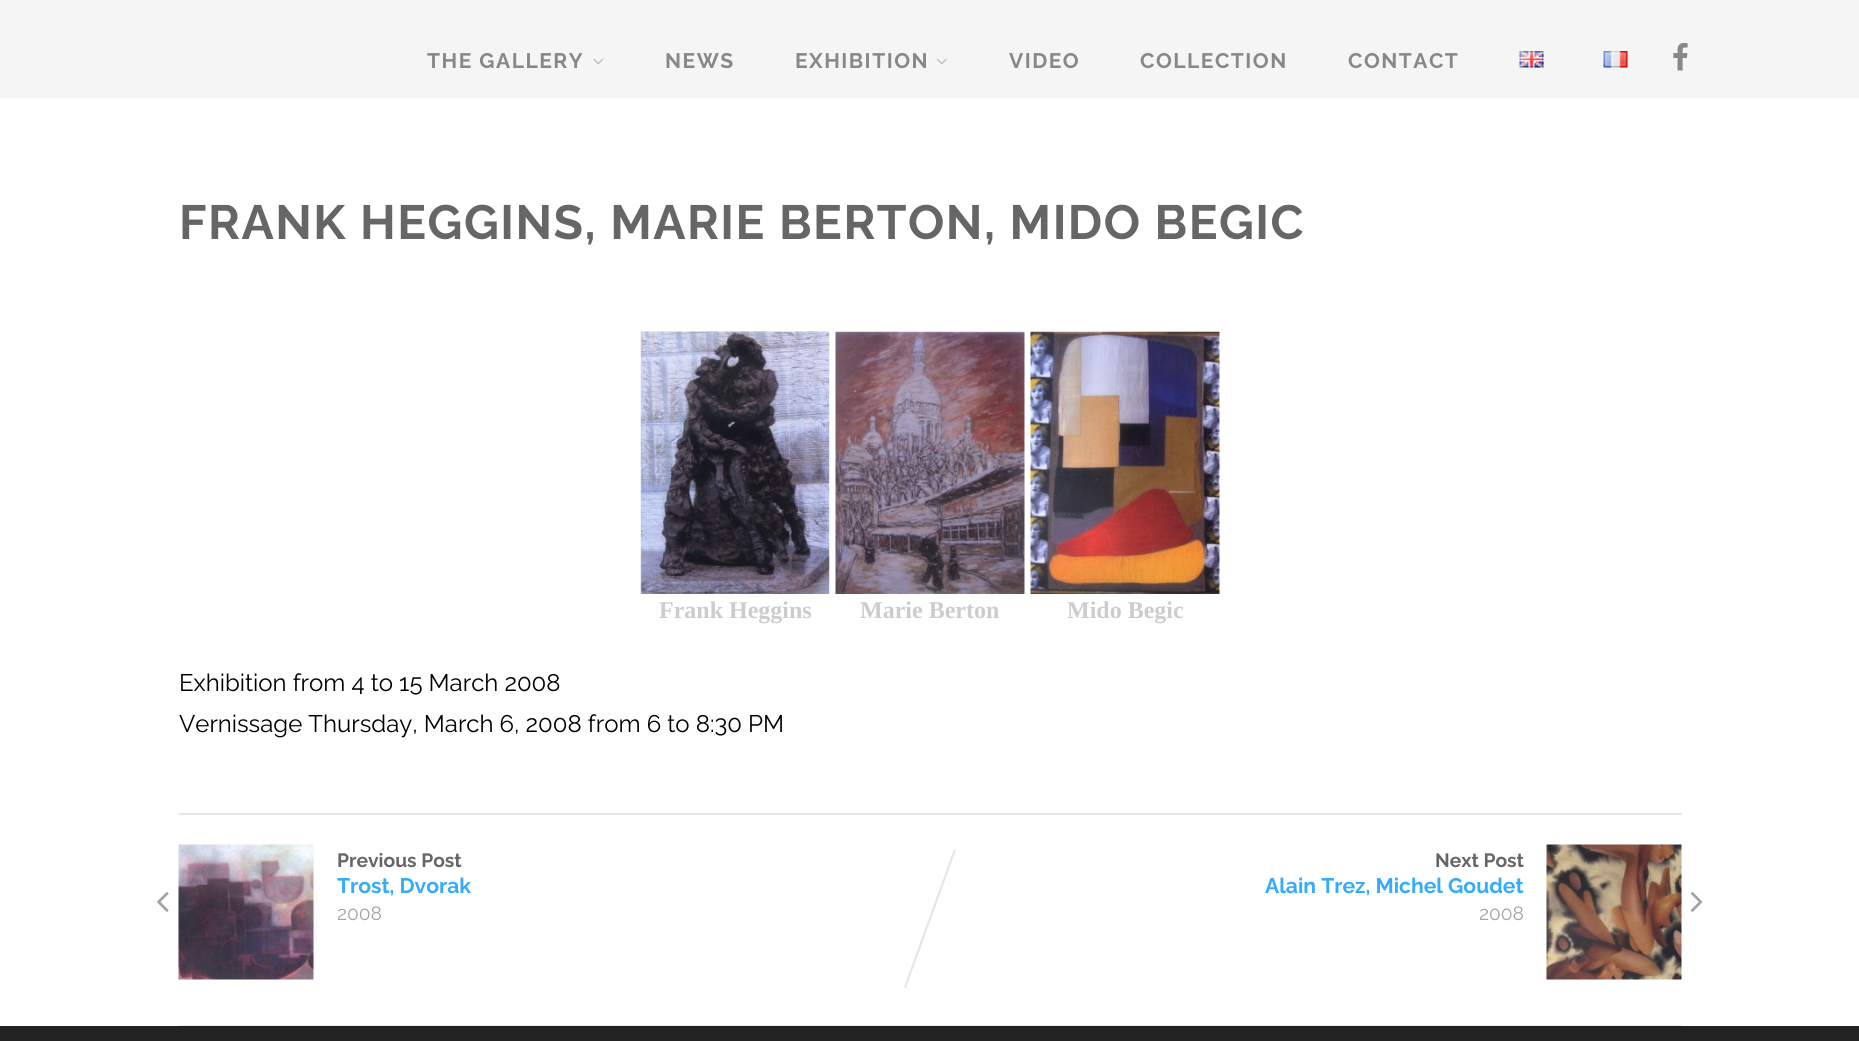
import math
import cairo

surface = cairo.ImageSurface(cairo.FORMAT_RGB24, 1859, 1041)
ctx = cairo.Context(surface)
options = cairo.FontOptions()
options.set_hint_metrics(cairo.HINT_METRICS_OFF)
options.set_hint_style(cairo.HINT_STYLE_NONE)
ctx.set_font_options(options)
ctx.set_miter_limit(4)


def set_color(code):
    ctx.set_source_rgb(*(v / 255 for v in bytes.fromhex(code[-6:])))


def draw_text(x, y, s, family, size, color, bold=False, italic=False):
    ctx.select_font_face(family, cairo.FONT_SLANT_ITALIC if italic else cairo.FONT_SLANT_NORMAL, cairo.FONT_WEIGHT_BOLD if bold else cairo.FONT_WEIGHT_NORMAL)
    ctx.set_font_size(size)
    set_color(color)
    ctx.move_to(x, y)
    ctx.show_text(s)


def draw_spaced(x, y, s, letter, word):
    ctx.move_to(x, y)
    for ch in s:
        ctx.show_text(ch)
        ctx.rel_move_to(letter + word * (ch == ' '), 0)


def fill_rect(x, y, w, h, color):
    set_color(color)
    ctx.rectangle(x, y, w, h)
    ctx.fill()


def draw_image(path, x, y, w, h):
    ctx.save()
    ctx.set_source_surface(cairo.ImageSurface.create_from_png(path), x, y)
    ctx.rectangle(x, y, w, h)
    ctx.fill()
    ctx.restore()


set_color("#ffffff")
ctx.paint()
fill_rect(179, 1025, 1503, 1, "#ebebeb")
fill_rect(0, 0, 1859, 98, "#f5f5f5")
ctx.select_font_face("Raleway", cairo.FONT_SLANT_NORMAL, cairo.FONT_WEIGHT_BOLD)
ctx.set_font_size(21)
set_color("#888888")
draw_spaced(427, 68, "THE GALLERY", 1.5, 0)
draw_image("assets/img1.png", 593, 58, 11, 7)
draw_spaced(665, 68, "NEWS", 1.5, 0)
draw_spaced(795, 68, "EXHIBITION", 1.5, 0)
draw_image("assets/img2.png", 936, 58, 11, 7)
draw_spaced(1009, 68, "VIDEO", 1.5, 0)
draw_spaced(1140, 68, "COLLECTION", 1.5, 0)
draw_spaced(1348, 68, "CONTACT", 1.5, 0)
draw_image("assets/img3.png", 1519, 51, 25, 17)
draw_image("assets/img4.png", 1603, 51, 25, 17)
draw_image("assets/img5.png", 1673, 43, 15, 28)
ctx.set_font_size(48)
set_color("#666666")
draw_spaced(179, 239, "FRANK HEGGINS, MARIE BERTON, MIDO BEGIC", 1.5, 0)
draw_image("assets/img6.png", 640, 331, 190, 263)
draw_text(659, 618, "Frank Heggins", "Liberation Serif", 24, "#cccccc", bold=True)
draw_image("assets/img7.png", 835, 331, 190, 263)
draw_text(860, 618, "Marie Berton", "Liberation Serif", 24, "#cccccc", bold=True)
draw_image("assets/img8.png", 1030, 331, 190, 263)
draw_text(1067, 618, "Mido Begic", "Liberation Serif", 24, "#cccccc", bold=True)
draw_text(179, 691, "Exhibition from 4 to 15 March 2008", "Raleway", 24, "#000000")
draw_text(179, 732, "Vernissage Thursday, March 6, 2008 from 6 to 8:30 PM", "Raleway", 24, "#000000")
fill_rect(179, 813, 1503, 2, "#e6e6e6")
draw_image("assets/img9.png", 178, 844, 136, 136)
draw_text(337, 867, "Previous Post", "Raleway", 19.25, "#666666", bold=True)
draw_text(337, 893, "Trost, Dvorak", "Raleway", 21.1, "#36abfc", bold=True)
draw_image("assets/img10.png", 157, 892, 12, 20)
draw_text(337, 920, "2008", "Raleway", 19.25, "#a3a3a3")
set_color("#e6e6e6")
ctx.new_path()
ctx.move_to(954, 849)
ctx.line_to(956, 850)
ctx.line_to(906, 988)
ctx.line_to(904, 987)
ctx.close_path()
ctx.fill()
draw_text(1435, 867, "Next Post", "Raleway", 19.25, "#666666", bold=True)
draw_image("assets/img11.png", 1546, 844, 136, 136)
draw_text(1265, 893, "Alain Trez, Michel Goudet", "Raleway", 21.1, "#36abfc", bold=True)
draw_image("assets/img12.png", 1690, 892, 13, 20)
draw_text(1479, 920, "2008", "Raleway", 19.25, "#a3a3a3")
fill_rect(0, 1026, 1859, 15, "#222222")
fill_rect(179, 1026, 1503, 1, "#1f1f1f")
surface.write_to_png("output.png")
